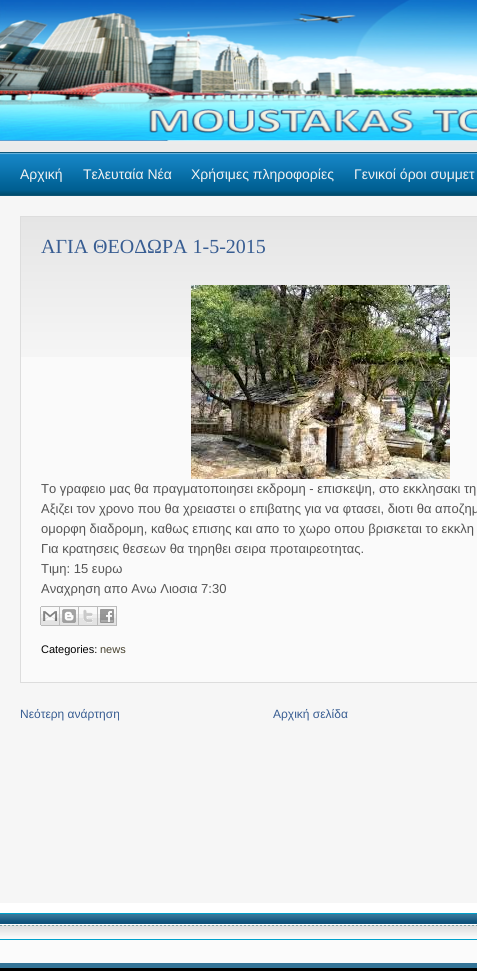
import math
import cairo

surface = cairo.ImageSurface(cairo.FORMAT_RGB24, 477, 971)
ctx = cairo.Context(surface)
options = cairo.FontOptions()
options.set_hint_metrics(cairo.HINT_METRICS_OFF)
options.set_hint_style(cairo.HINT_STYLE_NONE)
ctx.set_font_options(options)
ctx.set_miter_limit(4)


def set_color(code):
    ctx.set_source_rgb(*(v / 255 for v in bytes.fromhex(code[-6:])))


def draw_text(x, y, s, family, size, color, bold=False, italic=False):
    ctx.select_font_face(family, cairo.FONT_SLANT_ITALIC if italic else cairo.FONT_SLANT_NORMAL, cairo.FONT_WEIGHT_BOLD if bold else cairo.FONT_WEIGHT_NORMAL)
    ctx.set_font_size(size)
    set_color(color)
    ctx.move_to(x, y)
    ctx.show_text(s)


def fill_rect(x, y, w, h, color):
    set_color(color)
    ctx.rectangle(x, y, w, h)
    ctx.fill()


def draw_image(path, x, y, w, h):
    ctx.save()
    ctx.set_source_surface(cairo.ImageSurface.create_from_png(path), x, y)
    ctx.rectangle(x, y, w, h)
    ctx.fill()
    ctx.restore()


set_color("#ffffff")
ctx.paint()
draw_image("assets/img1.png", 0, 141, 477, 55)
draw_image("assets/img2.png", 0, 0, 477, 141)
draw_text(20, 179, "Αρχική", "Liberation Sans", 14, "#f2f2f2")
draw_text(83, 179, "Τελευταία Νέα", "Liberation Sans", 14, "#f2f2f2")
draw_text(191, 179, "Χρήσιμες πληροφορίες", "Liberation Sans", 14, "#f2f2f2")
draw_text(354, 179, "Γενικοί όροι συμμετ", "Liberation Sans", 14, "#f2f2f2")
fill_rect(0, 196, 477, 707, "#f6f6f6")
fill_rect(21, 357, 456, 325, "#fafafa")
draw_image("assets/img3.png", 21, 217, 456, 140)
ctx.rectangle(20.5, 216.5, 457, 466)
set_color("#dddddd")
ctx.set_line_width(1)
ctx.stroke()
draw_text(41, 253, "ΑΓΙΑ ΘΕΟΔΩΡΑ 1-5-2015", "Liberation Serif", 20, "#385d92")
draw_image("assets/img4.png", 191, 285, 259, 194)
draw_text(41, 493, "Το γραφειο μας θα πραγματοποιησει εκδρομη - επισκεψη, στο εκκλησακι τη", "Liberation Sans", 13, "#555555")
draw_text(41, 513, "Αξιζει τον χρονο που θα χρειαστει ο επιβατης για να φτασει, διοτι θα αποζημ", "Liberation Sans", 13, "#555555")
draw_text(41, 533, "ομορφη διαδρομη, καθως επισης και απο το χωρο οπου βρισκεται το εκκλη", "Liberation Sans", 13, "#555555")
draw_text(41, 553, "Για κρατησεις θεσεων θα τηρηθει σειρα προταιρεοτητας.", "Liberation Sans", 13, "#555555")
draw_text(41, 573, "Τιμη: 15 ευρω", "Liberation Sans", 13, "#555555")
draw_text(41, 593, "Αναχρηση απο Ανω Λιοσια 7:30", "Liberation Sans", 13, "#555555")
draw_image("assets/img5.png", 40, 606, 20, 20)
draw_image("assets/img6.png", 60, 606, 19, 20)
draw_image("assets/img7.png", 79, 606, 19, 20)
draw_image("assets/img8.png", 98, 606, 19, 20)
draw_text(41, 653, "Categories:", "Liberation Sans", 11, "#000000")
draw_text(100, 653, "news", "Liberation Sans", 11, "#47422f")
draw_text(20, 718, "Νεότερη ανάρτηση", "Liberation Sans", 12, "#385d92")
draw_text(273, 718, "Αρχική σελίδα", "Liberation Sans", 12, "#385d92")
fill_rect(0, 926, 477, 37, "#fbfbfb")
draw_image("assets/img9.png", 0, 913, 477, 27)
fill_rect(0, 968, 477, 3, "#000000")
fill_rect(0, 963, 477, 5, "#347497")
surface.write_to_png("output.png")
